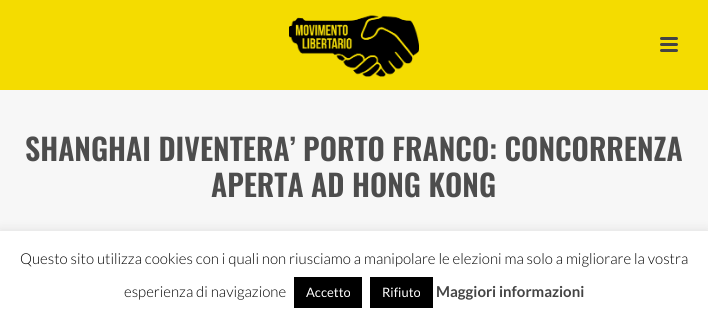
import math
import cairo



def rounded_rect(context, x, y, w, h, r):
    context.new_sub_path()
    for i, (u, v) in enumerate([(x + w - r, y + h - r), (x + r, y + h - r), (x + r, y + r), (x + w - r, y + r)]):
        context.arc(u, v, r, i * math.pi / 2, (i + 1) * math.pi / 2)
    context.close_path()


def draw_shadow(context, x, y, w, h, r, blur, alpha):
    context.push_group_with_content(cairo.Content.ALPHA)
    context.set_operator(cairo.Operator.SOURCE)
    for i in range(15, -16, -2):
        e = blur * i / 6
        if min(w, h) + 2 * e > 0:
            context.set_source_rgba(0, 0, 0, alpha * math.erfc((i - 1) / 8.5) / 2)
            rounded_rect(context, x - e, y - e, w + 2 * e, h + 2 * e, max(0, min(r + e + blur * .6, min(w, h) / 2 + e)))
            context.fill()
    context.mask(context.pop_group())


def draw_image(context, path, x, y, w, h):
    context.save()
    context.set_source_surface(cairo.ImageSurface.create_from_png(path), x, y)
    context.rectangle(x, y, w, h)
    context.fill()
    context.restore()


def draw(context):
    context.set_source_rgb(247 / 255, 247 / 255, 247 / 255)
    context.paint()
    context.set_source_rgb(244 / 255, 220 / 255, 0)
    context.rectangle(0, 0, 708, 90)
    context.fill()
    draw_image(context, "images/1.png", 289, 15, 130, 62)
    context.set_source_rgb(68 / 255, 68 / 255, 68 / 255)
    rounded_rect(context, 660, 37, 18, 3, 1.5)
    context.fill()
    rounded_rect(context, 660, 43, 18, 3, 1.5)
    context.fill()
    rounded_rect(context, 660, 49, 18, 3, 1.5)
    context.fill()
    context.set_source_rgb(172 / 255, 171 / 255, 171 / 255)
    draw_shadow(context, 0, 230, 708, 89, 0, 5, 0.3)
    context.set_source_rgb(1, 1, 1)
    context.rectangle(0, 231, 708, 89)
    context.fill()
    context.set_source_rgb(0, 0, 0)
    context.rectangle(294, 277, 68, 31)
    context.fill()
    context.rectangle(370, 277, 63, 31)
    context.fill()
    context.select_font_face("Oswald SemiBold")
    context.set_font_size(30)
    context.set_source_rgb(77 / 255, 77 / 255, 77 / 255)
    context.move_to(25, 161)
    context.show_text("SHANGHAI DIVENTERA’ PORTO FRANCO: CONCORRENZA")
    context.move_to(211, 197)
    context.show_text("APERTA AD HONG KONG")
    context.select_font_face("Lato Light")
    context.set_font_size(15)
    context.set_source_rgb(0, 0, 0)
    context.move_to(20, 264)
    context.show_text("Questo sito utilizza cookies con i quali non riusciamo a manipolare le elezioni ma solo a migliorare la vostra")
    context.move_to(124, 297)
    context.show_text("esperienza di navigazione")
    context.select_font_face("Lato")
    context.set_font_size(13)
    context.set_source_rgb(1, 1, 1)
    context.move_to(306, 297)
    context.show_text("Accetto")
    context.move_to(382, 297)
    context.show_text("Rifiuto")
    context.select_font_face("Lato", cairo.FontSlant.NORMAL, cairo.FontWeight.BOLD)
    context.set_font_size(15)
    context.set_source_rgb(68 / 255, 68 / 255, 68 / 255)
    context.move_to(436, 297)
    context.show_text("Maggiori informazioni")


surface = cairo.ImageSurface(cairo.Format.RGB24, 708, 320)
context = cairo.Context(surface)
options = cairo.FontOptions()
options.set_hint_metrics(cairo.HintMetrics.OFF)
options.set_hint_style(cairo.HintStyle.NONE)
context.set_font_options(options)
context.set_miter_limit(4)
draw(context)
surface.write_to_png("out.png")
